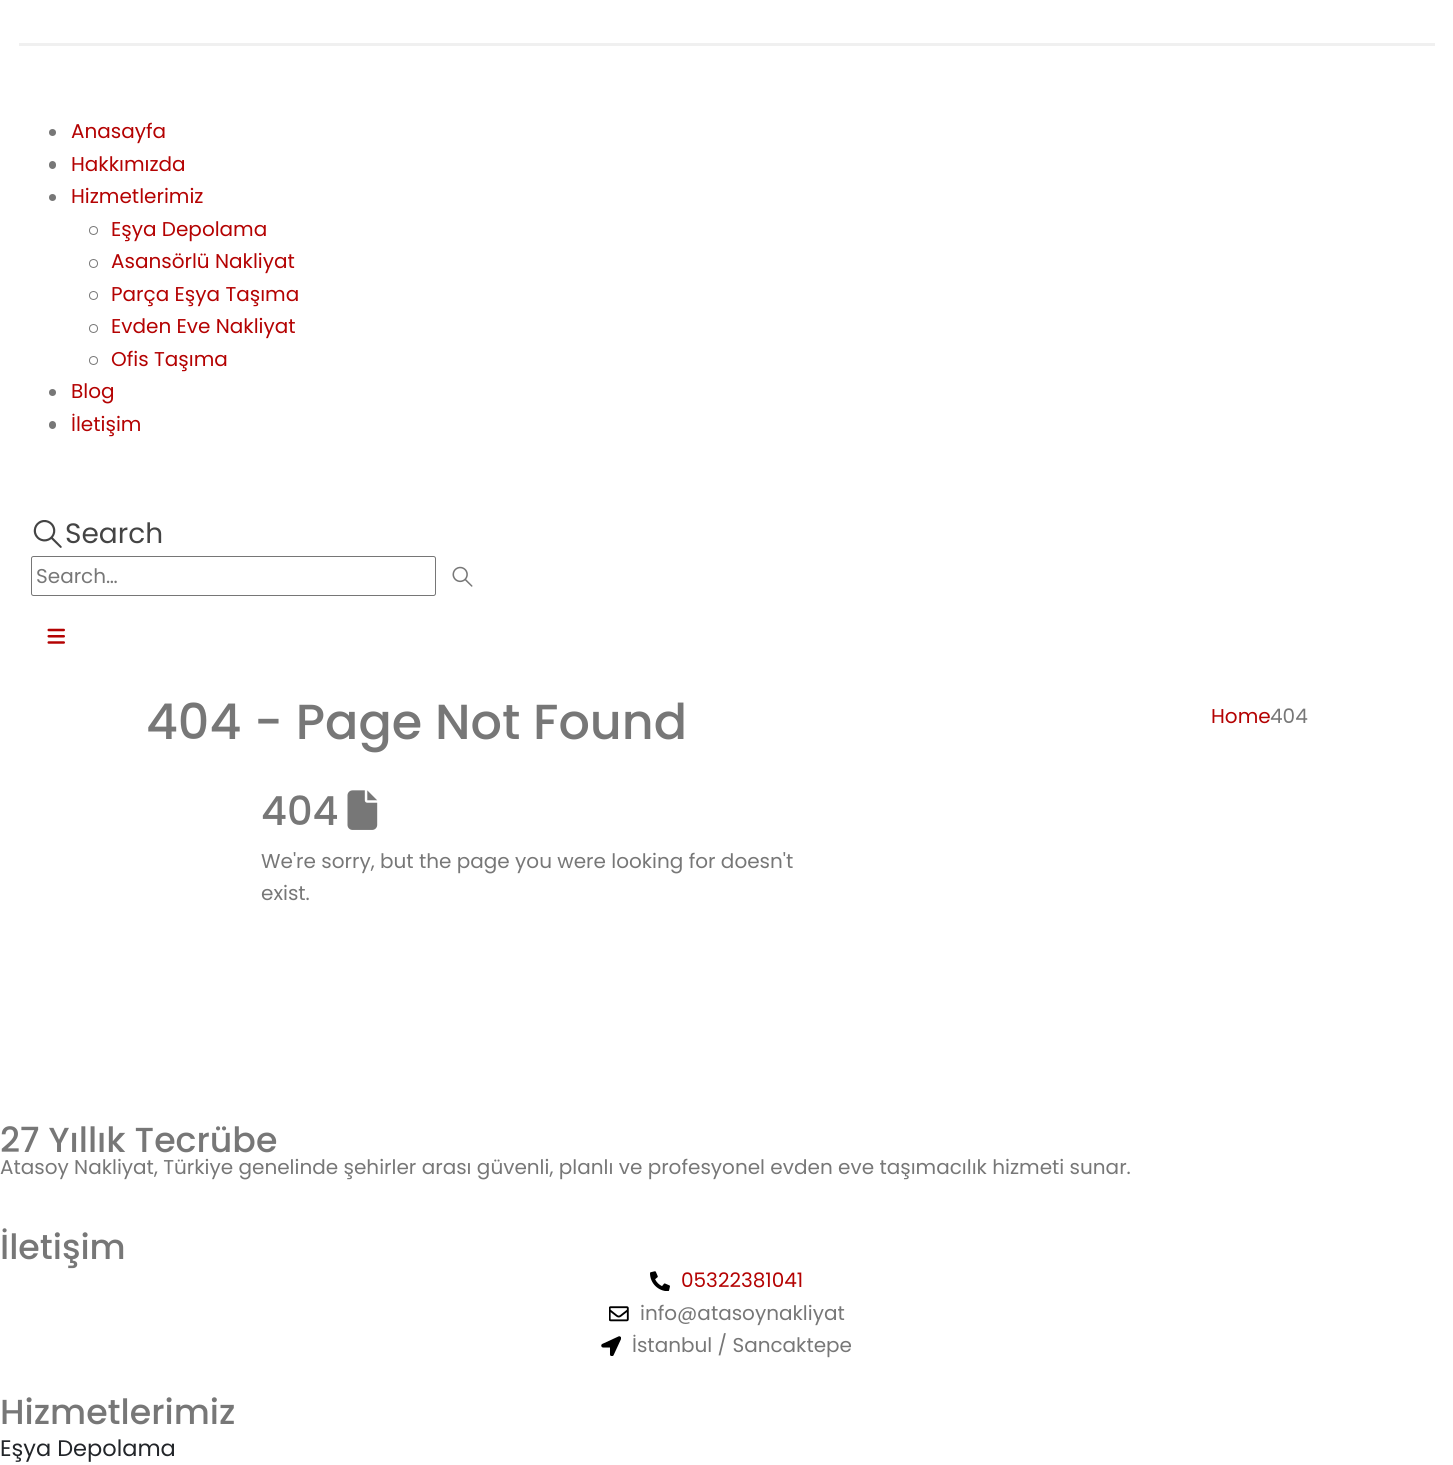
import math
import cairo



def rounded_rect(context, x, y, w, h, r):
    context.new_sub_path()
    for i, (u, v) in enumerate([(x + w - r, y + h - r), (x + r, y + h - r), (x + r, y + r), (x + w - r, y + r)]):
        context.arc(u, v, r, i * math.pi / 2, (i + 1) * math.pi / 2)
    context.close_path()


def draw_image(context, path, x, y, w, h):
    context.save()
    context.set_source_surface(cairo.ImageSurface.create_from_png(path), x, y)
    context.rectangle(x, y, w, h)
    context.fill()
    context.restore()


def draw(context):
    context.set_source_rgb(1, 1, 1)
    context.paint()
    context.set_source_rgb(240 / 255, 240 / 255, 240 / 255)
    context.rectangle(19, 43, 1416, 3)
    context.fill()
    context.set_source_rgb(119 / 255, 119 / 255, 119 / 255)
    context.arc(52.5, 132.5, 3.5, 0, 2 * math.pi)
    context.fill()
    rounded_rect(context, 49, 161, 7, 8, 3.5)
    context.fill()
    context.arc(52.5, 197.5, 3.5, 0, 2 * math.pi)
    context.fill()
    context.arc(93.5, 230.5, 4, 0, 2 * math.pi)
    context.set_line_width(1)
    context.stroke()
    context.arc(93.5, 263.5, 4, 0, 2 * math.pi)
    context.stroke()
    context.arc(93.5, 295.5, 4, 0, 2 * math.pi)
    context.stroke()
    context.arc(93.5, 328.5, 4, 0, 2 * math.pi)
    context.stroke()
    context.arc(93.5, 360.5, 4, 0, 2 * math.pi)
    context.stroke()
    context.arc(52.5, 392.5, 3.5, 0, 2 * math.pi)
    context.fill()
    rounded_rect(context, 49, 421, 7, 8, 3.5)
    context.fill()
    draw_image(context, "images/1.png", 33, 520, 29, 28)
    rounded_rect(context, 31.5, 556.5, 404, 39, 2)
    context.set_source_rgb(118 / 255, 118 / 255, 118 / 255)
    context.stroke()
    draw_image(context, "images/2.png", 452, 566, 21, 21)
    draw_image(context, "images/3.png", 47, 628, 18, 16)
    draw_image(context, "images/4.png", 347, 790, 31, 40)
    draw_image(context, "images/5.png", 650, 1271, 20, 20)
    draw_image(context, "images/6.png", 609, 1306, 20, 16)
    draw_image(context, "images/7.png", 601, 1336, 20, 20)
    context.select_font_face("Poppins")
    context.set_font_size(20)
    context.set_source_rgb(180 / 255, 2 / 255, 2 / 255)
    context.move_to(71, 138)
    context.show_text("Anasayfa")
    context.move_to(71, 171)
    context.show_text("Hakkımızda")
    context.move_to(71, 203)
    context.show_text("Hizmetlerimiz")
    context.move_to(111, 236)
    context.show_text("Eşya Depolama")
    context.move_to(111, 268)
    context.show_text("Asansörlü Nakliyat")
    context.move_to(111, 301)
    context.show_text("Parça Eşya Taşıma")
    context.move_to(111, 333)
    context.show_text("Evden Eve Nakliyat")
    context.move_to(111, 366)
    context.show_text("Ofis Taşıma")
    context.move_to(71, 398)
    context.show_text("Blog")
    context.move_to(71, 431)
    context.show_text("İletişim")
    context.set_font_size(28)
    context.set_source_rgb(68 / 255, 68 / 255, 68 / 255)
    context.move_to(65, 543)
    context.show_text("Search")
    context.set_font_size(20)
    context.set_source_rgb(119 / 255, 119 / 255, 119 / 255)
    context.move_to(36, 583)
    context.show_text("Search…")
    context.select_font_face("Poppins Medium")
    context.set_font_size(49.25)
    context.move_to(146, 739)
    context.show_text("404 - Page Not Found")
    context.select_font_face("Poppins")
    context.set_font_size(20)
    context.set_source_rgb(180 / 255, 2 / 255, 2 / 255)
    context.move_to(1211, 723)
    context.show_text("Home")
    context.set_source_rgb(119 / 255, 119 / 255, 119 / 255)
    context.move_to(1270, 723)
    context.show_text("404")
    context.select_font_face("Poppins Medium")
    context.set_font_size(40)
    context.move_to(261, 825)
    context.show_text("404")
    context.select_font_face("Poppins")
    context.set_font_size(20)
    context.move_to(261, 868)
    context.show_text("We're sorry, but the page you were looking for doesn't")
    context.move_to(261, 900)
    context.show_text("exist.")
    context.select_font_face("Poppins Medium")
    context.set_font_size(34.75)
    context.move_to(0, 1152)
    context.show_text("27 Yıllık Tecrübe")
    context.select_font_face("Poppins")
    context.set_font_size(20)
    context.move_to(0, 1174)
    context.show_text("Atasoy Nakliyat, Türkiye genelinde şehirler arası güvenli, planlı ve profesyonel evden eve taşımacılık hizmeti sunar.")
    context.select_font_face("Poppins Medium")
    context.set_font_size(34.75)
    context.move_to(0, 1259)
    context.show_text("İletişim")
    context.select_font_face("Poppins")
    context.set_font_size(20)
    context.set_source_rgb(180 / 255, 2 / 255, 2 / 255)
    context.move_to(681, 1287)
    context.show_text("05322381041")
    context.set_source_rgb(119 / 255, 119 / 255, 119 / 255)
    context.move_to(640, 1320)
    context.show_text("info@atasoynakliyat")
    context.move_to(632, 1352)
    context.show_text("İstanbul / Sancaktepe")
    context.select_font_face("Poppins Medium")
    context.set_font_size(34.75)
    context.move_to(0, 1424)
    context.show_text("Hizmetlerimiz")
    context.select_font_face("Poppins")
    context.set_font_size(22.5)
    context.set_source_rgb(34 / 255, 37 / 255, 41 / 255)
    context.move_to(0, 1456)
    context.show_text("Eşya Depolama")


surface = cairo.ImageSurface(cairo.Format.RGB24, 1453, 1465)
context = cairo.Context(surface)
options = cairo.FontOptions()
options.set_hint_metrics(cairo.HintMetrics.OFF)
options.set_hint_style(cairo.HintStyle.NONE)
context.set_font_options(options)
context.set_miter_limit(4)
draw(context)
surface.write_to_png("out.png")
